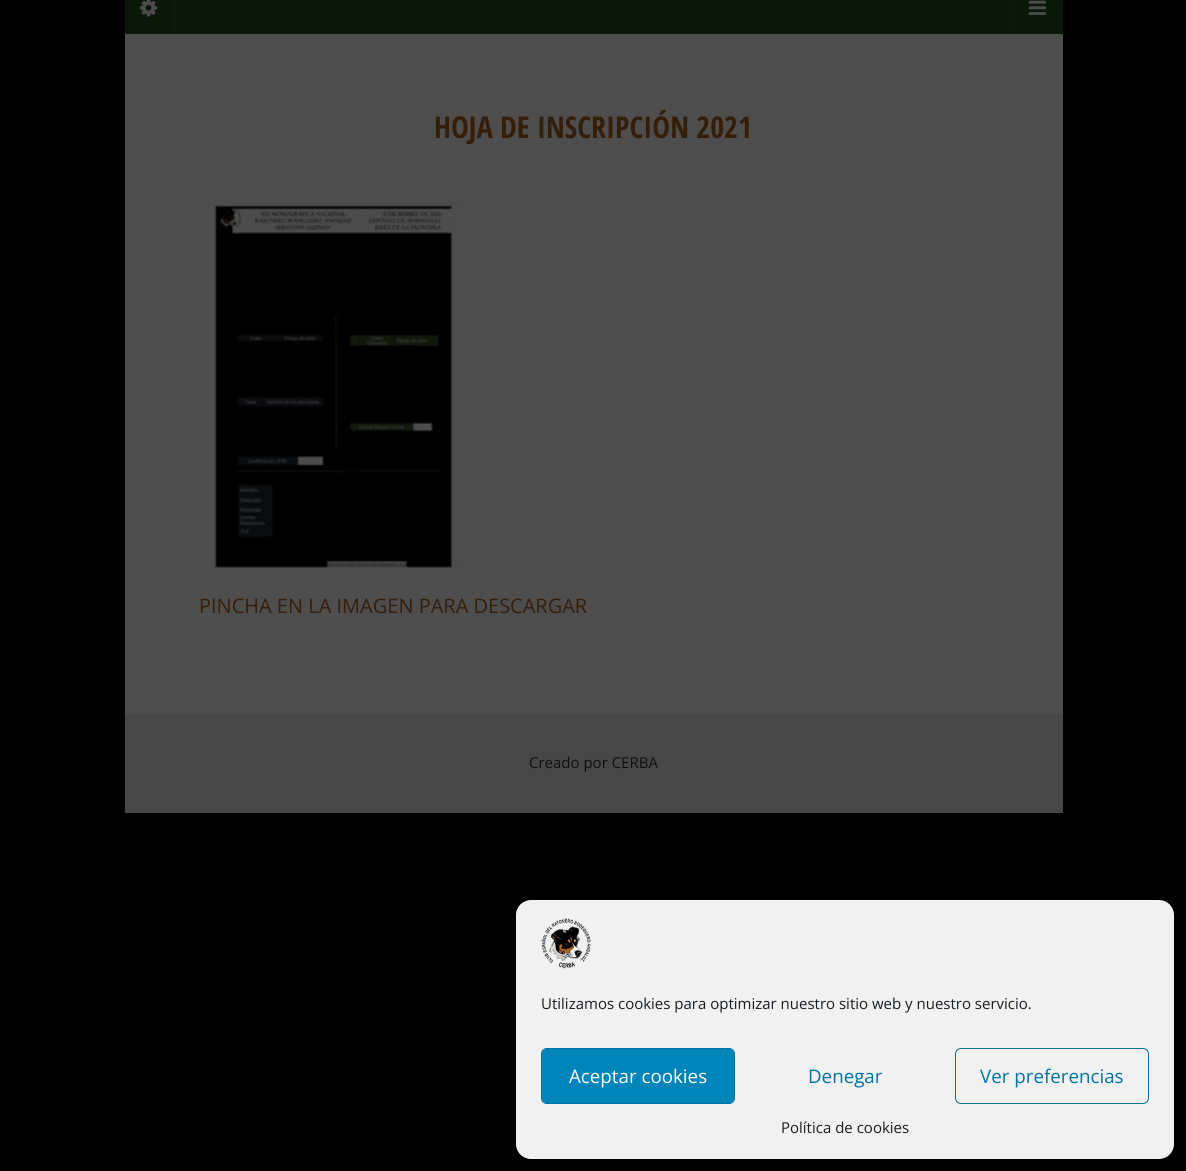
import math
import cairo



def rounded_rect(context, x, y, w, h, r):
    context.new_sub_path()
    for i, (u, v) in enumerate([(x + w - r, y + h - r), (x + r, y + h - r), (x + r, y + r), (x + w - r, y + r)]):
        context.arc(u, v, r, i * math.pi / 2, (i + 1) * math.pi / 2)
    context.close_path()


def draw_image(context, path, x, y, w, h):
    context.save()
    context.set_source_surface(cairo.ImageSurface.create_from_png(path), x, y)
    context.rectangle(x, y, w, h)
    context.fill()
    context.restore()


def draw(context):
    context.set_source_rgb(0, 0, 0)
    context.paint()
    context.set_source_rgb(9 / 255, 24 / 255, 8 / 255)
    context.rectangle(125, 0, 938, 33)
    context.fill()
    context.set_source_rgb(16 / 255, 29 / 255, 14 / 255)
    context.rectangle(174, 0, 1, 33)
    context.fill()
    draw_image(context, "images/1.png", 140, 0, 18, 17)
    context.rectangle(1013, 0, 1, 33)
    context.fill()
    draw_image(context, "images/2.png", 1028, 0, 18, 15)
    context.rectangle(125, 33, 938, 1)
    context.fill()
    context.set_source_rgb(77 / 255, 77 / 255, 77 / 255)
    context.rectangle(125, 34, 938, 680)
    context.fill()
    draw_image(context, "images/3.png", 211, 199, 249, 370)
    context.set_source_rgb(71 / 255, 71 / 255, 71 / 255)
    context.rectangle(125, 714, 938, 99)
    context.fill()
    context.set_source_rgb(241 / 255, 241 / 255, 241 / 255)
    rounded_rect(context, 516, 900, 658, 259, 15)
    context.fill()
    draw_image(context, "images/4.png", 541, 918, 51, 51)
    context.set_source_rgb(0, 133 / 255, 186 / 255)
    rounded_rect(context, 541.5, 1048.5, 193, 55, 5.5)
    context.fill_preserve()
    context.set_source_rgb(0, 115 / 255, 170 / 255)
    context.set_line_width(1)
    context.stroke()
    rounded_rect(context, 955.5, 1048.5, 193, 55, 5.5)
    context.stroke()
    context.select_font_face("Open Sans Condensed", cairo.FontSlant.NORMAL, cairo.FontWeight.BOLD)
    context.set_font_size(30)
    context.set_source_rgb(53 / 255, 30 / 255, 9 / 255)
    context.move_to(434, 138)
    context.show_text("HOJA DE INSCRIPCIÓN 2021")
    context.select_font_face("Open Sans")
    context.set_font_size(20)
    context.move_to(199, 613)
    context.show_text("PINCHA EN LA IMAGEN PARA DESCARGAR")
    context.set_font_size(15)
    context.set_source_rgb(15 / 255, 15 / 255, 15 / 255)
    context.move_to(529, 768)
    context.show_text("Creado por CERBA")
    context.set_source_rgb(25 / 255, 30 / 255, 35 / 255)
    context.move_to(541, 1009)
    context.show_text("Utilizamos cookies para optimizar nuestro sitio web y nuestro servicio.")
    context.set_font_size(18.75)
    context.set_source_rgb(1, 1, 1)
    context.move_to(569, 1083)
    context.show_text("Aceptar cookies")
    context.set_source_rgb(0, 115 / 255, 170 / 255)
    context.move_to(808, 1083)
    context.show_text("Denegar")
    context.move_to(980, 1083)
    context.show_text("Ver preferencias")
    context.set_font_size(15)
    context.set_source_rgb(25 / 255, 30 / 255, 35 / 255)
    context.move_to(781, 1133)
    context.show_text("Política de cookies")


surface = cairo.ImageSurface(cairo.Format.RGB24, 1186, 1171)
context = cairo.Context(surface)
options = cairo.FontOptions()
options.set_hint_metrics(cairo.HintMetrics.OFF)
options.set_hint_style(cairo.HintStyle.NONE)
context.set_font_options(options)
context.set_miter_limit(4)
draw(context)
surface.write_to_png("out.png")
